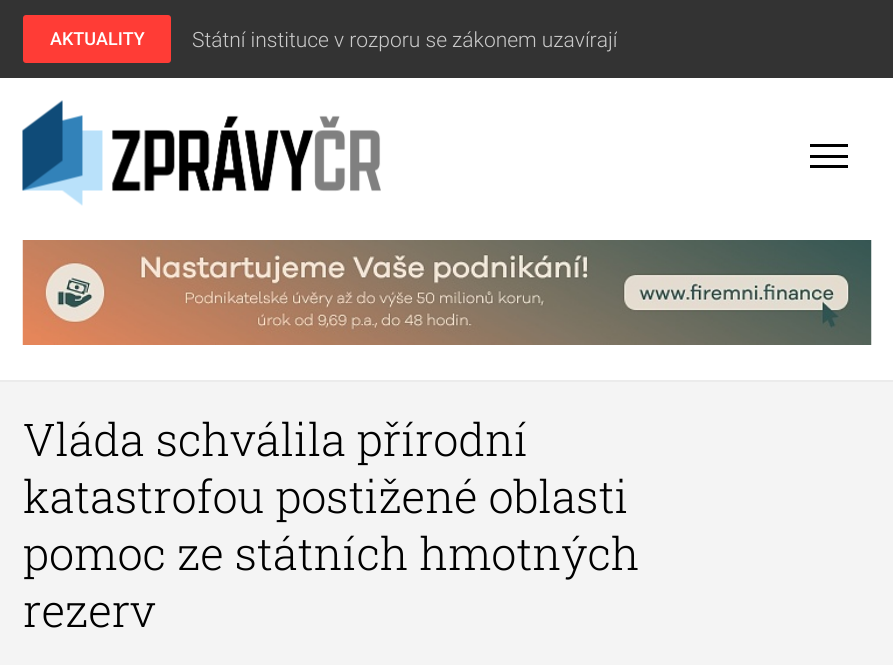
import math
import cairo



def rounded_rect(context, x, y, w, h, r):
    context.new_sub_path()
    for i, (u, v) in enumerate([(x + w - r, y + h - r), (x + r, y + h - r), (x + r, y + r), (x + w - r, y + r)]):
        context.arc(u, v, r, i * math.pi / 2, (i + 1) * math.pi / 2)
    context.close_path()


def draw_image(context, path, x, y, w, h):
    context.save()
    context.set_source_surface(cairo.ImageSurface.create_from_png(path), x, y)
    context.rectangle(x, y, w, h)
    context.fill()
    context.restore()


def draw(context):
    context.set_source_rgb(1, 1, 1)
    context.paint()
    context.set_source_rgb(51 / 255, 51 / 255, 51 / 255)
    context.rectangle(0, 0, 893, 78)
    context.fill()
    context.set_source_rgb(1, 60 / 255, 54 / 255)
    rounded_rect(context, 23, 15, 148, 48, 3)
    context.fill()
    draw_image(context, "images/1.png", 22, 100, 359, 106)
    context.set_source_rgb(0, 0, 0)
    context.rectangle(810, 144, 38, 3)
    context.fill()
    context.rectangle(810, 155, 38, 3)
    context.fill()
    context.rectangle(810, 165, 38, 3)
    context.fill()
    draw_image(context, "images/2.png", 22, 240, 850, 105)
    context.set_source_rgb(244 / 255, 244 / 255, 244 / 255)
    context.rectangle(0, 382, 893, 283)
    context.fill()
    context.set_source_rgb(235 / 255, 235 / 255, 235 / 255)
    context.rectangle(0, 380, 893, 2)
    context.fill()
    context.select_font_face("Roboto Medium")
    context.set_font_size(18)
    context.set_source_rgb(1, 1, 1)
    context.move_to(50, 45)
    context.show_text("AKTUALITY")
    context.select_font_face("Roboto Light")
    context.set_font_size(21)
    context.set_source_rgb(202 / 255, 202 / 255, 202 / 255)
    context.move_to(192, 47)
    context.show_text("Státní instituce v rozporu se zákonem uzavírají")
    context.set_source_rgb(51 / 255, 51 / 255, 51 / 255)
    context.rectangle(617, 31, 1, 2)
    context.fill()
    context.select_font_face("Roboto Slab Light")
    context.set_font_size(45)
    context.set_source_rgb(0, 0, 0)
    context.move_to(23, 456)
    context.show_text("Vláda schválila přírodní")
    context.move_to(23, 513)
    context.show_text("katastrofou postižené oblasti")
    context.move_to(23, 570)
    context.show_text("pomoc ze státních hmotných")
    context.move_to(23, 627)
    context.show_text("rezerv")


surface = cairo.ImageSurface(cairo.Format.RGB24, 893, 665)
context = cairo.Context(surface)
options = cairo.FontOptions()
options.set_hint_metrics(cairo.HintMetrics.OFF)
options.set_hint_style(cairo.HintStyle.NONE)
context.set_font_options(options)
context.set_miter_limit(4)
draw(context)
surface.write_to_png("out.png")
